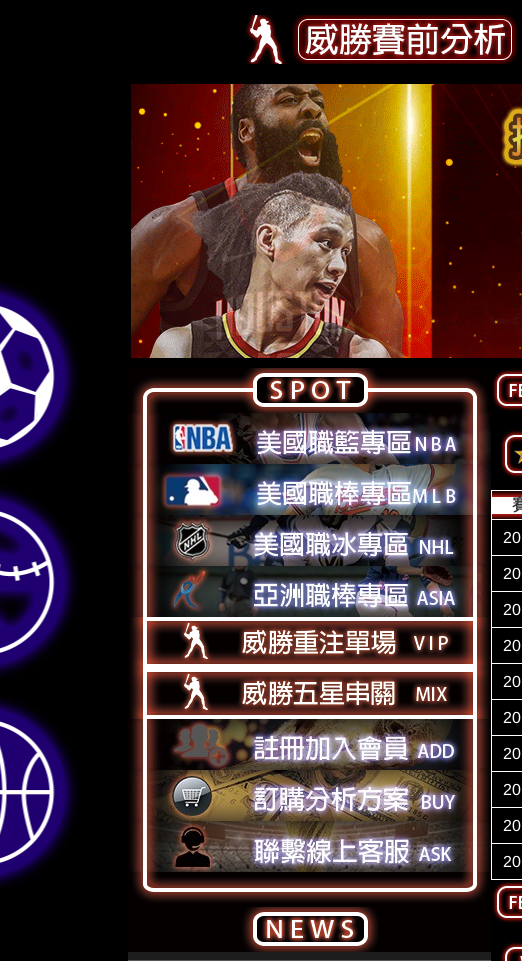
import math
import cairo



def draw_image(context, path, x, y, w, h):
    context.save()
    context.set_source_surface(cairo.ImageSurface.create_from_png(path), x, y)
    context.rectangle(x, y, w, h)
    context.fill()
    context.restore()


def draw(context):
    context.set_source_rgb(0, 0, 0)
    context.paint()
    draw_image(context, "images/1.png", 0, 280, 79, 609)
    draw_image(context, "images/2.png", 245, 15, 273, 49)
    draw_image(context, "images/3.png", 131, 84, 391, 274)
    context.set_source_rgb(29 / 255, 29 / 255, 29 / 255)
    context.rectangle(128, 952, 363, 8)
    context.fill()
    draw_image(context, "images/4.png", 128, 368, 363, 45)
    draw_image(context, "images/5.png", 128, 413, 363, 51)
    draw_image(context, "images/6.png", 128, 464, 363, 51)
    draw_image(context, "images/7.png", 128, 515, 363, 51)
    draw_image(context, "images/8.png", 128, 566, 363, 51)
    draw_image(context, "images/9.png", 128, 617, 363, 51)
    draw_image(context, "images/10.png", 128, 668, 363, 51)
    draw_image(context, "images/11.png", 128, 719, 363, 51)
    draw_image(context, "images/12.png", 128, 770, 363, 51)
    draw_image(context, "images/13.png", 128, 821, 363, 51)
    draw_image(context, "images/14.png", 128, 872, 363, 35)
    draw_image(context, "images/15.png", 128, 907, 363, 45)
    draw_image(context, "images/16.png", 128, 960, 237, 1)
    draw_image(context, "images/17.png", 365, 960, 50, 1)
    draw_image(context, "images/18.png", 415, 960, 76, 1)
    draw_image(context, "images/19.png", 492, 369, 30, 42)
    draw_image(context, "images/20.png", 500, 430, 22, 48)
    context.set_source_rgb(1, 1, 1)
    context.rectangle(491, 490, 31, 1)
    context.fill()
    context.rectangle(491, 879, 31, 1)
    context.fill()
    context.rectangle(491, 490, 1, 390)
    context.fill()
    draw_image(context, "images/21.png", 492, 491, 30, 28)
    context.rectangle(491, 519, 31, 1)
    context.fill()
    context.rectangle(491, 555, 31, 1)
    context.fill()
    context.rectangle(491, 591, 31, 1)
    context.fill()
    context.rectangle(491, 627, 31, 1)
    context.fill()
    context.rectangle(491, 663, 31, 1)
    context.fill()
    context.rectangle(491, 699, 31, 1)
    context.fill()
    context.rectangle(491, 735, 31, 1)
    context.fill()
    context.rectangle(491, 771, 31, 1)
    context.fill()
    context.rectangle(491, 807, 31, 1)
    context.fill()
    context.rectangle(491, 843, 31, 1)
    context.fill()
    draw_image(context, "images/19.png", 492, 881, 30, 42)
    draw_image(context, "images/22.png", 500, 942, 22, 19)
    context.select_font_face("WenQuanYi Zen Hei", cairo.FontSlant.NORMAL, cairo.FontWeight.BOLD)
    context.set_font_size(16)
    context.set_source_rgb(51 / 255, 51 / 255, 51 / 255)
    context.move_to(512, 510)
    context.show_text("賽")
    context.select_font_face("Liberation Sans")
    context.set_source_rgb(1, 1, 1)
    context.move_to(503, 543)
    context.show_text("20")
    context.move_to(503, 579)
    context.show_text("20")
    context.move_to(503, 615)
    context.show_text("20")
    context.move_to(503, 651)
    context.show_text("20")
    context.move_to(503, 687)
    context.show_text("20")
    context.move_to(503, 723)
    context.show_text("20")
    context.move_to(503, 759)
    context.show_text("20")
    context.move_to(503, 795)
    context.show_text("20")
    context.move_to(503, 831)
    context.show_text("20")
    context.move_to(503, 867)
    context.show_text("20")


surface = cairo.ImageSurface(cairo.Format.RGB24, 522, 961)
context = cairo.Context(surface)
options = cairo.FontOptions()
options.set_hint_metrics(cairo.HintMetrics.OFF)
options.set_hint_style(cairo.HintStyle.NONE)
context.set_font_options(options)
context.set_miter_limit(4)
draw(context)
surface.write_to_png("out.png")
